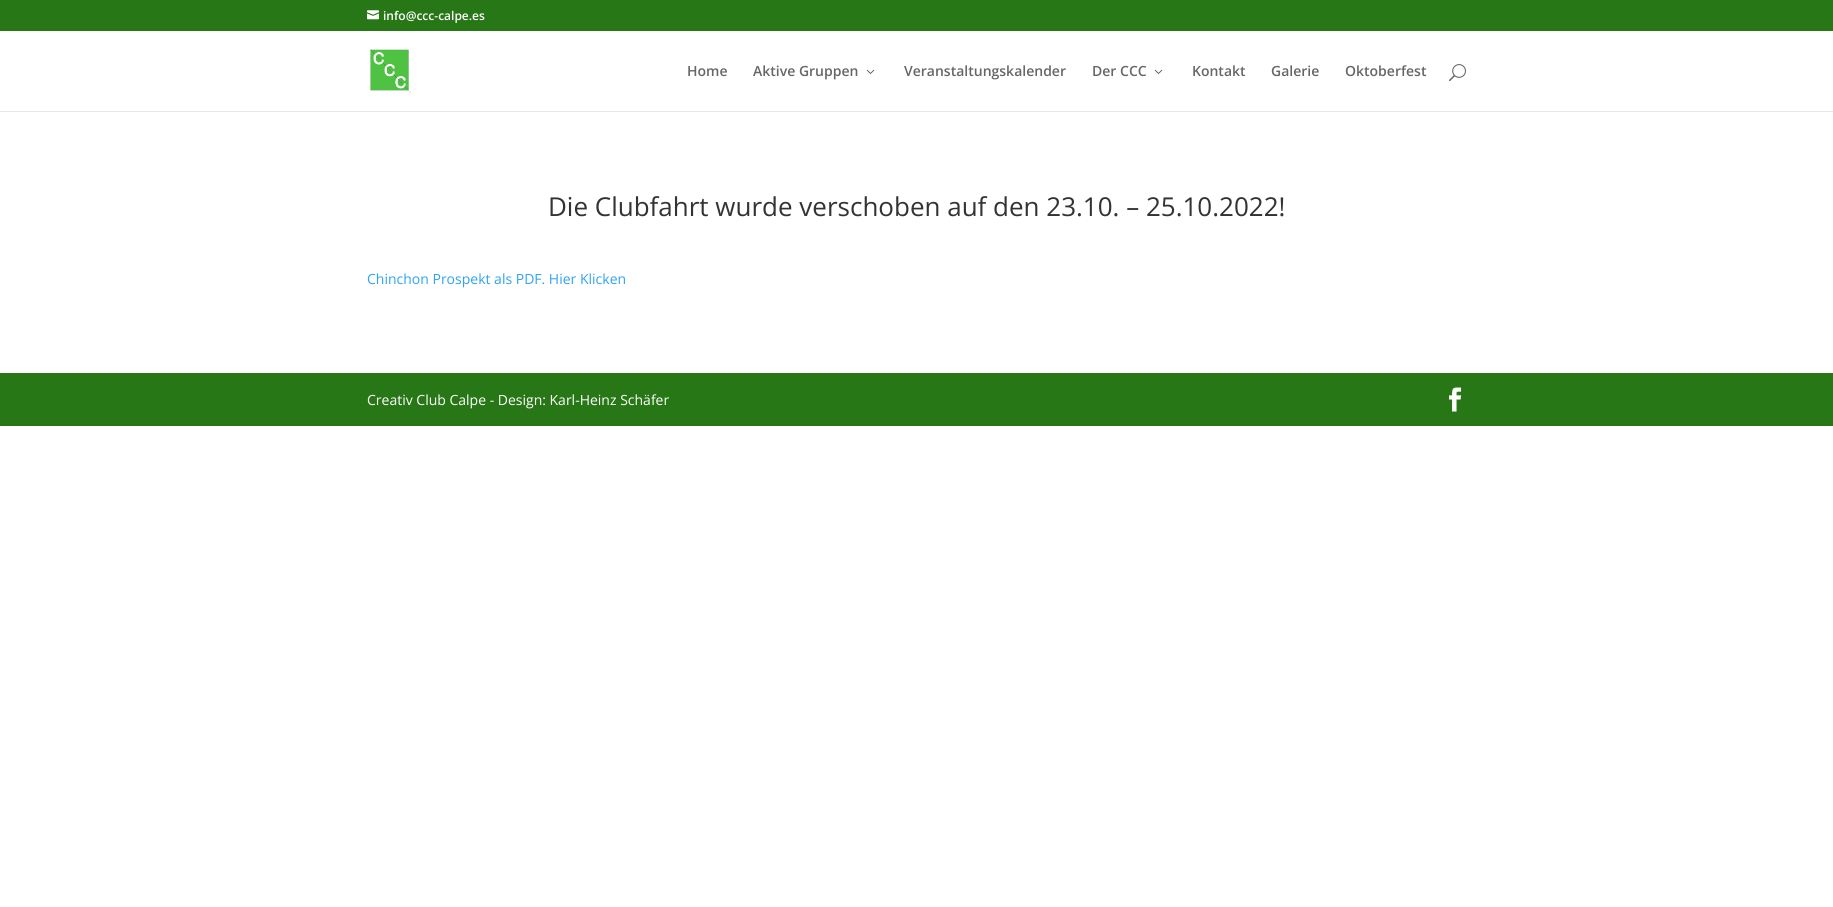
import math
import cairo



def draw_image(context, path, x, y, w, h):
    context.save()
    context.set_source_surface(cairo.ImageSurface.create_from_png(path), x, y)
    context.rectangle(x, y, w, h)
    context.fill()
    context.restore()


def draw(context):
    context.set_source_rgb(1, 1, 1)
    context.paint()
    context.set_source_rgb(40 / 255, 119 / 255, 22 / 255)
    context.rectangle(0, 0, 1833, 31)
    context.fill()
    draw_image(context, "images/1.png", 367, 10, 12, 10)
    context.set_source_rgb(230 / 255, 230 / 255, 230 / 255)
    context.rectangle(0, 111, 1833, 1)
    context.fill()
    draw_image(context, "images/2.png", 370, 49, 41, 44)
    draw_image(context, "images/3.png", 866, 69, 9, 5)
    draw_image(context, "images/3.png", 1154, 69, 9, 5)
    draw_image(context, "images/4.png", 1449, 64, 17, 18)
    context.set_source_rgb(40 / 255, 119 / 255, 22 / 255)
    context.rectangle(0, 373, 1833, 53)
    context.fill()
    draw_image(context, "images/5.png", 1449, 387, 13, 25)
    context.select_font_face("Open Sans SemiBold")
    context.set_font_size(12)
    context.set_source_rgb(1, 1, 1)
    context.move_to(383, 20)
    context.show_text("info@ccc-calpe.es")
    context.set_font_size(14)
    context.set_source_rgb(102 / 255, 102 / 255, 102 / 255)
    context.move_to(687, 76)
    context.show_text("Home")
    context.move_to(753, 76)
    context.show_text("Aktive Gruppen")
    context.move_to(904, 76)
    context.show_text("Veranstaltungskalender")
    context.move_to(1092, 76)
    context.show_text("Der CCC")
    context.move_to(1192, 76)
    context.show_text("Kontakt")
    context.move_to(1271, 76)
    context.show_text("Galerie")
    context.move_to(1345, 76)
    context.show_text("Oktoberfest")
    context.select_font_face("Open Sans")
    context.set_font_size(26)
    context.set_source_rgb(51 / 255, 51 / 255, 51 / 255)
    context.move_to(548, 216)
    context.show_text("Die Clubfahrt wurde verschoben auf den 23.10. – 25.10.2022!")
    context.set_font_size(14)
    context.set_source_rgb(46 / 255, 163 / 255, 242 / 255)
    context.move_to(367, 284)
    context.show_text("Chinchon Prospekt als PDF. Hier Klicken")
    context.set_source_rgb(1, 1, 1)
    context.move_to(367, 405)
    context.show_text("Creativ Club Calpe - Design: Karl-Heinz Schäfer")


surface = cairo.ImageSurface(cairo.Format.RGB24, 1833, 907)
context = cairo.Context(surface)
options = cairo.FontOptions()
options.set_hint_metrics(cairo.HintMetrics.OFF)
options.set_hint_style(cairo.HintStyle.NONE)
context.set_font_options(options)
context.set_miter_limit(4)
draw(context)
surface.write_to_png("out.png")
